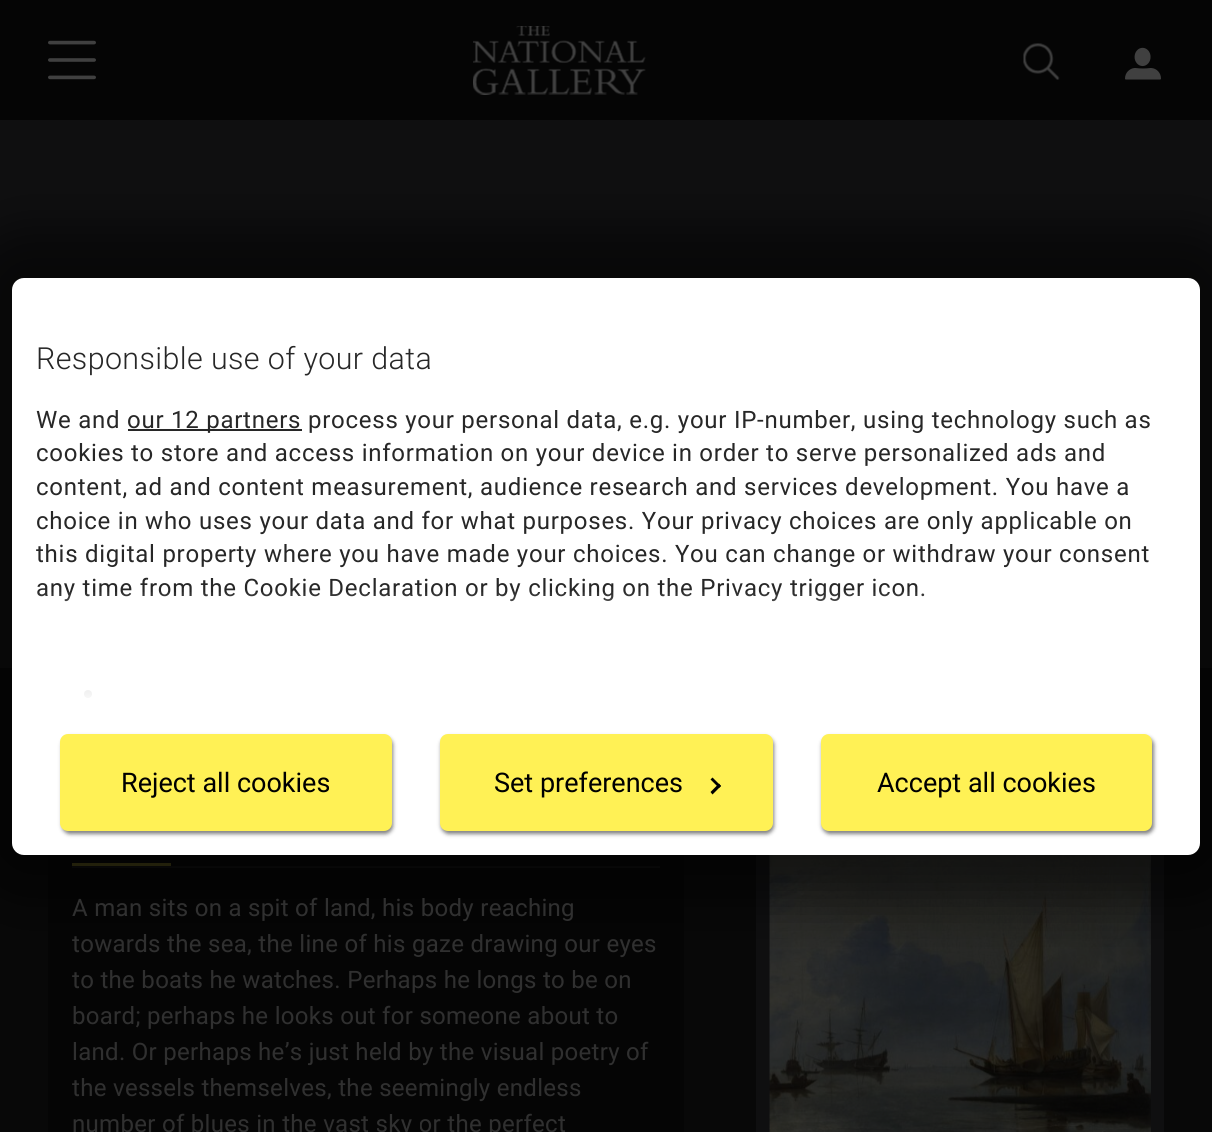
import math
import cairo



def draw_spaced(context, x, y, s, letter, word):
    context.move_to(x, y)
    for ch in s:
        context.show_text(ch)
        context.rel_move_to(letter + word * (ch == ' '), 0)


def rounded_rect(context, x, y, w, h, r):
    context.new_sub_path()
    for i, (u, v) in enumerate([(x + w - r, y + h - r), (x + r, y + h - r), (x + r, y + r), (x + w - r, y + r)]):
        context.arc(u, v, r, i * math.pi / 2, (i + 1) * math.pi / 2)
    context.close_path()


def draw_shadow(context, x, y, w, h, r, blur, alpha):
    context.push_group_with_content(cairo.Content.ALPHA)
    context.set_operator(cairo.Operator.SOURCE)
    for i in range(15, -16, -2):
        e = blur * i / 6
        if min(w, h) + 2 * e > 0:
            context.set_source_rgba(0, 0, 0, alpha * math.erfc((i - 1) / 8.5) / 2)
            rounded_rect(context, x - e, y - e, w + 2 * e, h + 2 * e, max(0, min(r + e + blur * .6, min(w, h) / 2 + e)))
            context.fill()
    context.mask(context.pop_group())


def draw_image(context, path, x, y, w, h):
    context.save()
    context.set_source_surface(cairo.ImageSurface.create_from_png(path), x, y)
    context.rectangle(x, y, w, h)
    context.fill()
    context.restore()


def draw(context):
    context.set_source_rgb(8 / 255, 8 / 255, 8 / 255)
    context.paint()
    context.set_source_rgb(5 / 255, 5 / 255, 5 / 255)
    context.rectangle(0, 0, 1212, 120)
    context.fill()
    draw_image(context, "images/1.png", 48, 40, 48, 40)
    draw_image(context, "images/2.png", 473, 26, 173, 69)
    draw_image(context, "images/3.png", 1023, 43, 37, 37)
    draw_image(context, "images/4.png", 1125, 47, 36, 33)
    context.set_source_rgb(15 / 255, 15 / 255, 16 / 255)
    context.rectangle(0, 120, 1212, 548)
    context.fill()
    context.set_source_rgb(5 / 255, 5 / 255, 5 / 255)
    context.rectangle(48, 855, 636, 277)
    context.fill()
    context.set_source_rgb(14 / 255, 14 / 255, 14 / 255)
    context.rectangle(72, 866, 588, 2)
    context.fill()
    context.set_source_rgb(64 / 255, 60 / 255, 21 / 255)
    context.rectangle(72, 863, 99, 3)
    context.fill()
    context.set_source_rgb(15 / 255, 15 / 255, 16 / 255)
    context.rectangle(758, 855, 404, 277)
    context.fill()
    context.rectangle(757, 705, 406, 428)
    context.stroke()
    draw_image(context, "images/5.png", 769, 855, 382, 277)
    context.set_source_rgb(0, 0, 0)
    draw_shadow(context, -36, 230, 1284, 673, 60, 24, 0.5)
    context.set_source_rgb(1, 1, 1)
    rounded_rect(context, 12, 278, 1188, 577, 12)
    context.fill()
    context.set_source_rgb(39 / 255, 39 / 255, 39 / 255)
    context.rectangle(128, 429, 174, 2)
    context.fill()
    context.arc(88, 694, 4, 0, 2 * math.pi)
    context.fill()
    context.set_source_rgb(0, 0, 0)
    draw_shadow(context, 62, 737, 331, 97, 8, 2, 0.5)
    context.set_source_rgb(1, 241 / 255, 85 / 255)
    rounded_rect(context, 61.5, 735.5, 329, 94, 6.5)
    context.fill_preserve()
    context.set_line_width(3)
    context.stroke()
    context.set_source_rgb(0, 0, 0)
    draw_shadow(context, 441, 737, 333, 97, 8, 2, 0.5)
    context.set_source_rgb(1, 241 / 255, 85 / 255)
    rounded_rect(context, 441.5, 735.5, 330, 94, 6.5)
    context.fill_preserve()
    context.stroke()
    context.set_source_rgb(0, 0, 0)
    context.new_path()
    context.move_to(712.5, 777.5)
    context.line_to(721, 786)
    context.line_to(719, 788)
    context.line_to(710.5, 779.5)
    context.close_path()
    context.fill()
    context.new_path()
    context.move_to(719, 783.5)
    context.line_to(721, 786)
    context.line_to(712.5, 794.5)
    context.line_to(710.5, 792)
    context.close_path()
    context.fill()
    context.set_source_rgb(0, 0, 0)
    draw_shadow(context, 822, 737, 332, 97, 8, 2, 0.5)
    context.set_source_rgb(1, 241 / 255, 85 / 255)
    rounded_rect(context, 822.5, 735.5, 328, 94, 6.5)
    context.fill_preserve()
    context.stroke()
    context.select_font_face("Roboto Light")
    context.set_font_size(30.4)
    context.set_source_rgb(39 / 255, 39 / 255, 39 / 255)
    draw_spaced(context, 36, 369, "Responsible use of your data", 0.4, 0)
    context.select_font_face("Roboto")
    context.set_font_size(24)
    draw_spaced(context, 36, 428, "We and", 0.75, 0)
    draw_spaced(context, 127, 428, "our 12 partners process your personal data, e.g. your IP-number, using technology such as", 0.75, 0)
    draw_spaced(context, 36, 461, "cookies to store and access information on your device in order to serve personalized ads and", 0.75, 0)
    draw_spaced(context, 36, 495, "content, ad and content measurement, audience research and services development. You have a", 0.75, 0)
    draw_spaced(context, 36, 529, "choice in who uses your data and for what purposes. Your privacy choices are only applicable on", 0.75, 0)
    draw_spaced(context, 36, 562, "this digital property where you have made your choices. You can change or withdraw your consent", 0.75, 0)
    draw_spaced(context, 36, 596, "any time from the Cookie Declaration or by clicking on the Privacy trigger icon.", 0.75, 0)
    gradient = cairo.LinearGradient(596, 710, 596, 590)
    gradient.add_color_stop_rgba(0, 1, 1, 1, 1)
    gradient.add_color_stop_rgba(0.5, 1, 1, 1, 0.8)
    gradient.add_color_stop_rgba(1, 1, 1, 1, 0)
    context.set_source(gradient)
    context.rectangle(37, 592, 887, 106)
    context.fill()
    context.set_font_size(27)
    context.set_source_rgb(0, 0, 0)
    context.move_to(121, 792)
    context.show_text("Reject all cookies")
    context.move_to(494, 792)
    context.show_text("Set preferences")
    context.move_to(877, 792)
    context.show_text("Accept all cookies")
    context.set_font_size(24)
    context.set_source_rgb(48 / 255, 48 / 255, 48 / 255)
    draw_spaced(context, 72, 916, "A man sits on a spit of land, his body reaching", 0.3, 0)
    draw_spaced(context, 72, 952, "towards the sea, the line of his gaze drawing our eyes", 0.3, 0)
    draw_spaced(context, 72, 988, "to the boats he watches. Perhaps he longs to be on", 0.3, 0)
    draw_spaced(context, 72, 1024, "board; perhaps he looks out for someone about to", 0.3, 0)
    draw_spaced(context, 72, 1060, "land. Or perhaps he’s just held by the visual poetry of", 0.3, 0)
    draw_spaced(context, 72, 1096, "the vessels themselves, the seemingly endless", 0.3, 0)
    draw_spaced(context, 72, 1132, "number of blues in the vast sky or the perfect", 0.3, 0)


surface = cairo.ImageSurface(cairo.Format.RGB24, 1212, 1132)
context = cairo.Context(surface)
options = cairo.FontOptions()
options.set_hint_metrics(cairo.HintMetrics.OFF)
options.set_hint_style(cairo.HintStyle.NONE)
context.set_font_options(options)
context.set_miter_limit(4)
draw(context)
surface.write_to_png("out.png")
